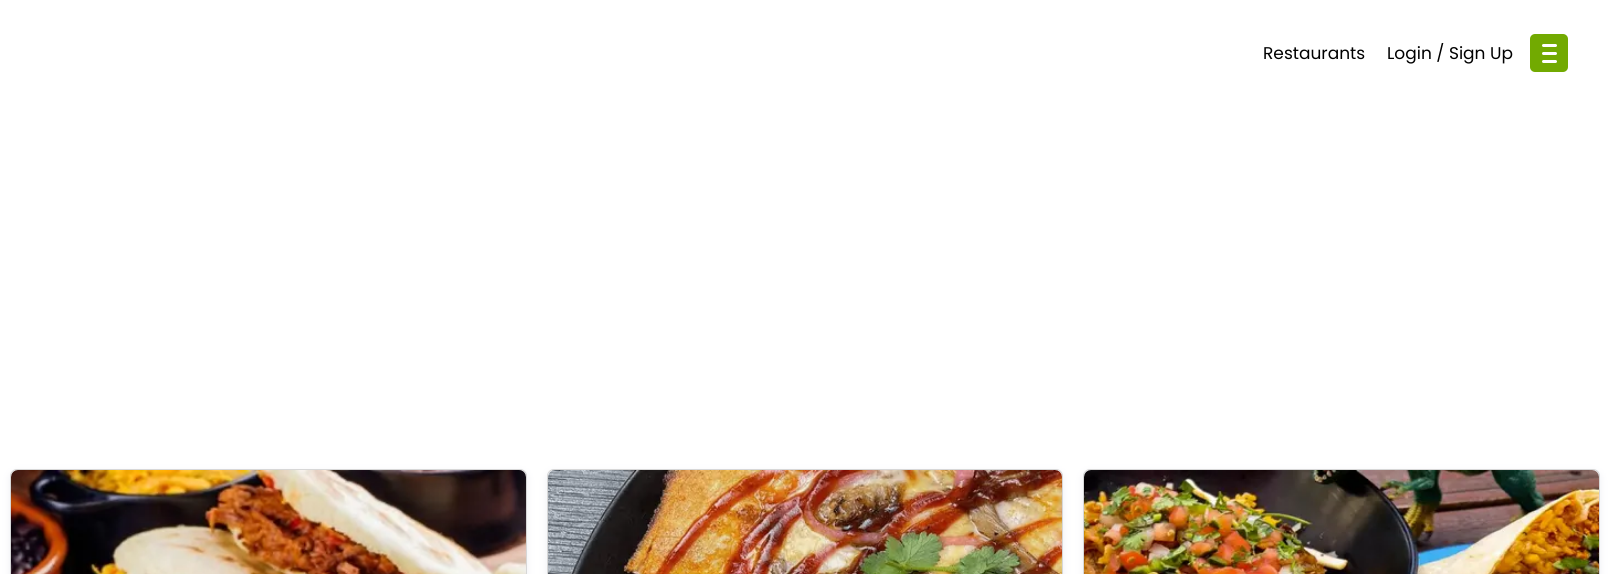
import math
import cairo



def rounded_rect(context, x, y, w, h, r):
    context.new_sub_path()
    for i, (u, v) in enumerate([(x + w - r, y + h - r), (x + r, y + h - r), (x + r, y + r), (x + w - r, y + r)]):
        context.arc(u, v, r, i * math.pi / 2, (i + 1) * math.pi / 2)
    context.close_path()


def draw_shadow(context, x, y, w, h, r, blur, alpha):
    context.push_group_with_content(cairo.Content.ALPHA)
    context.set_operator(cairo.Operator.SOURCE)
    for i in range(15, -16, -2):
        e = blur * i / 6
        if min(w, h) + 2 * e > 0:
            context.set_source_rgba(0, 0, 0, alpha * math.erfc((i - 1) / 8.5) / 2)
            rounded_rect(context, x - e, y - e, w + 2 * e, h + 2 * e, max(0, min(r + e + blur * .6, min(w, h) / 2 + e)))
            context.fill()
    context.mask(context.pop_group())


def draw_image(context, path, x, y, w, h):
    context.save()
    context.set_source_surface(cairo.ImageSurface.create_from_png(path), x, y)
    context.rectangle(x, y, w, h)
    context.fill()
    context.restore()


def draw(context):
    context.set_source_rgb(1, 1, 1)
    context.paint()
    context.set_source_rgb(114 / 255, 170 / 255, 1 / 255)
    rounded_rect(context, 1530, 34, 38, 38, 5)
    context.fill()
    context.set_source_rgb(1, 1, 1)
    rounded_rect(context, 1542, 44, 15, 3, 1.5)
    context.fill()
    rounded_rect(context, 1542, 52, 15, 3, 1.5)
    context.fill()
    rounded_rect(context, 1542, 60, 15, 3, 1.5)
    context.fill()
    context.set_source_rgb(166 / 255, 173 / 255, 201 / 255)
    draw_shadow(context, 10, 472, 517, 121, 7, 4, 0.2)
    rounded_rect(context, 10.5, 469.5, 516, 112, 6.5)
    context.set_source_rgb(215 / 255, 215 / 255, 215 / 255)
    context.set_line_width(1)
    context.stroke()
    draw_image(context, "images/1.png", 11, 470, 515, 104)
    context.set_source_rgb(166 / 255, 173 / 255, 201 / 255)
    draw_shadow(context, 547, 472, 516, 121, 7, 4, 0.2)
    rounded_rect(context, 547.5, 469.5, 515, 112, 6.5)
    context.set_source_rgb(215 / 255, 215 / 255, 215 / 255)
    context.stroke()
    draw_image(context, "images/2.png", 548, 470, 514, 104)
    context.set_source_rgb(166 / 255, 173 / 255, 201 / 255)
    draw_shadow(context, 1083, 472, 517, 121, 7, 4, 0.2)
    rounded_rect(context, 1083.5, 469.5, 516, 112, 6.5)
    context.set_source_rgb(215 / 255, 215 / 255, 215 / 255)
    context.stroke()
    draw_image(context, "images/3.png", 1084, 470, 515, 104)
    context.select_font_face("Poppins")
    context.set_font_size(17)
    context.set_source_rgb(0, 0, 0)
    context.move_to(1263, 59)
    context.show_text("Restaurants")
    context.move_to(1387, 59)
    context.show_text("Login / Sign Up")


surface = cairo.ImageSurface(cairo.Format.RGB24, 1610, 574)
context = cairo.Context(surface)
options = cairo.FontOptions()
options.set_hint_metrics(cairo.HintMetrics.OFF)
options.set_hint_style(cairo.HintStyle.NONE)
context.set_font_options(options)
context.set_miter_limit(4)
draw(context)
surface.write_to_png("out.png")
